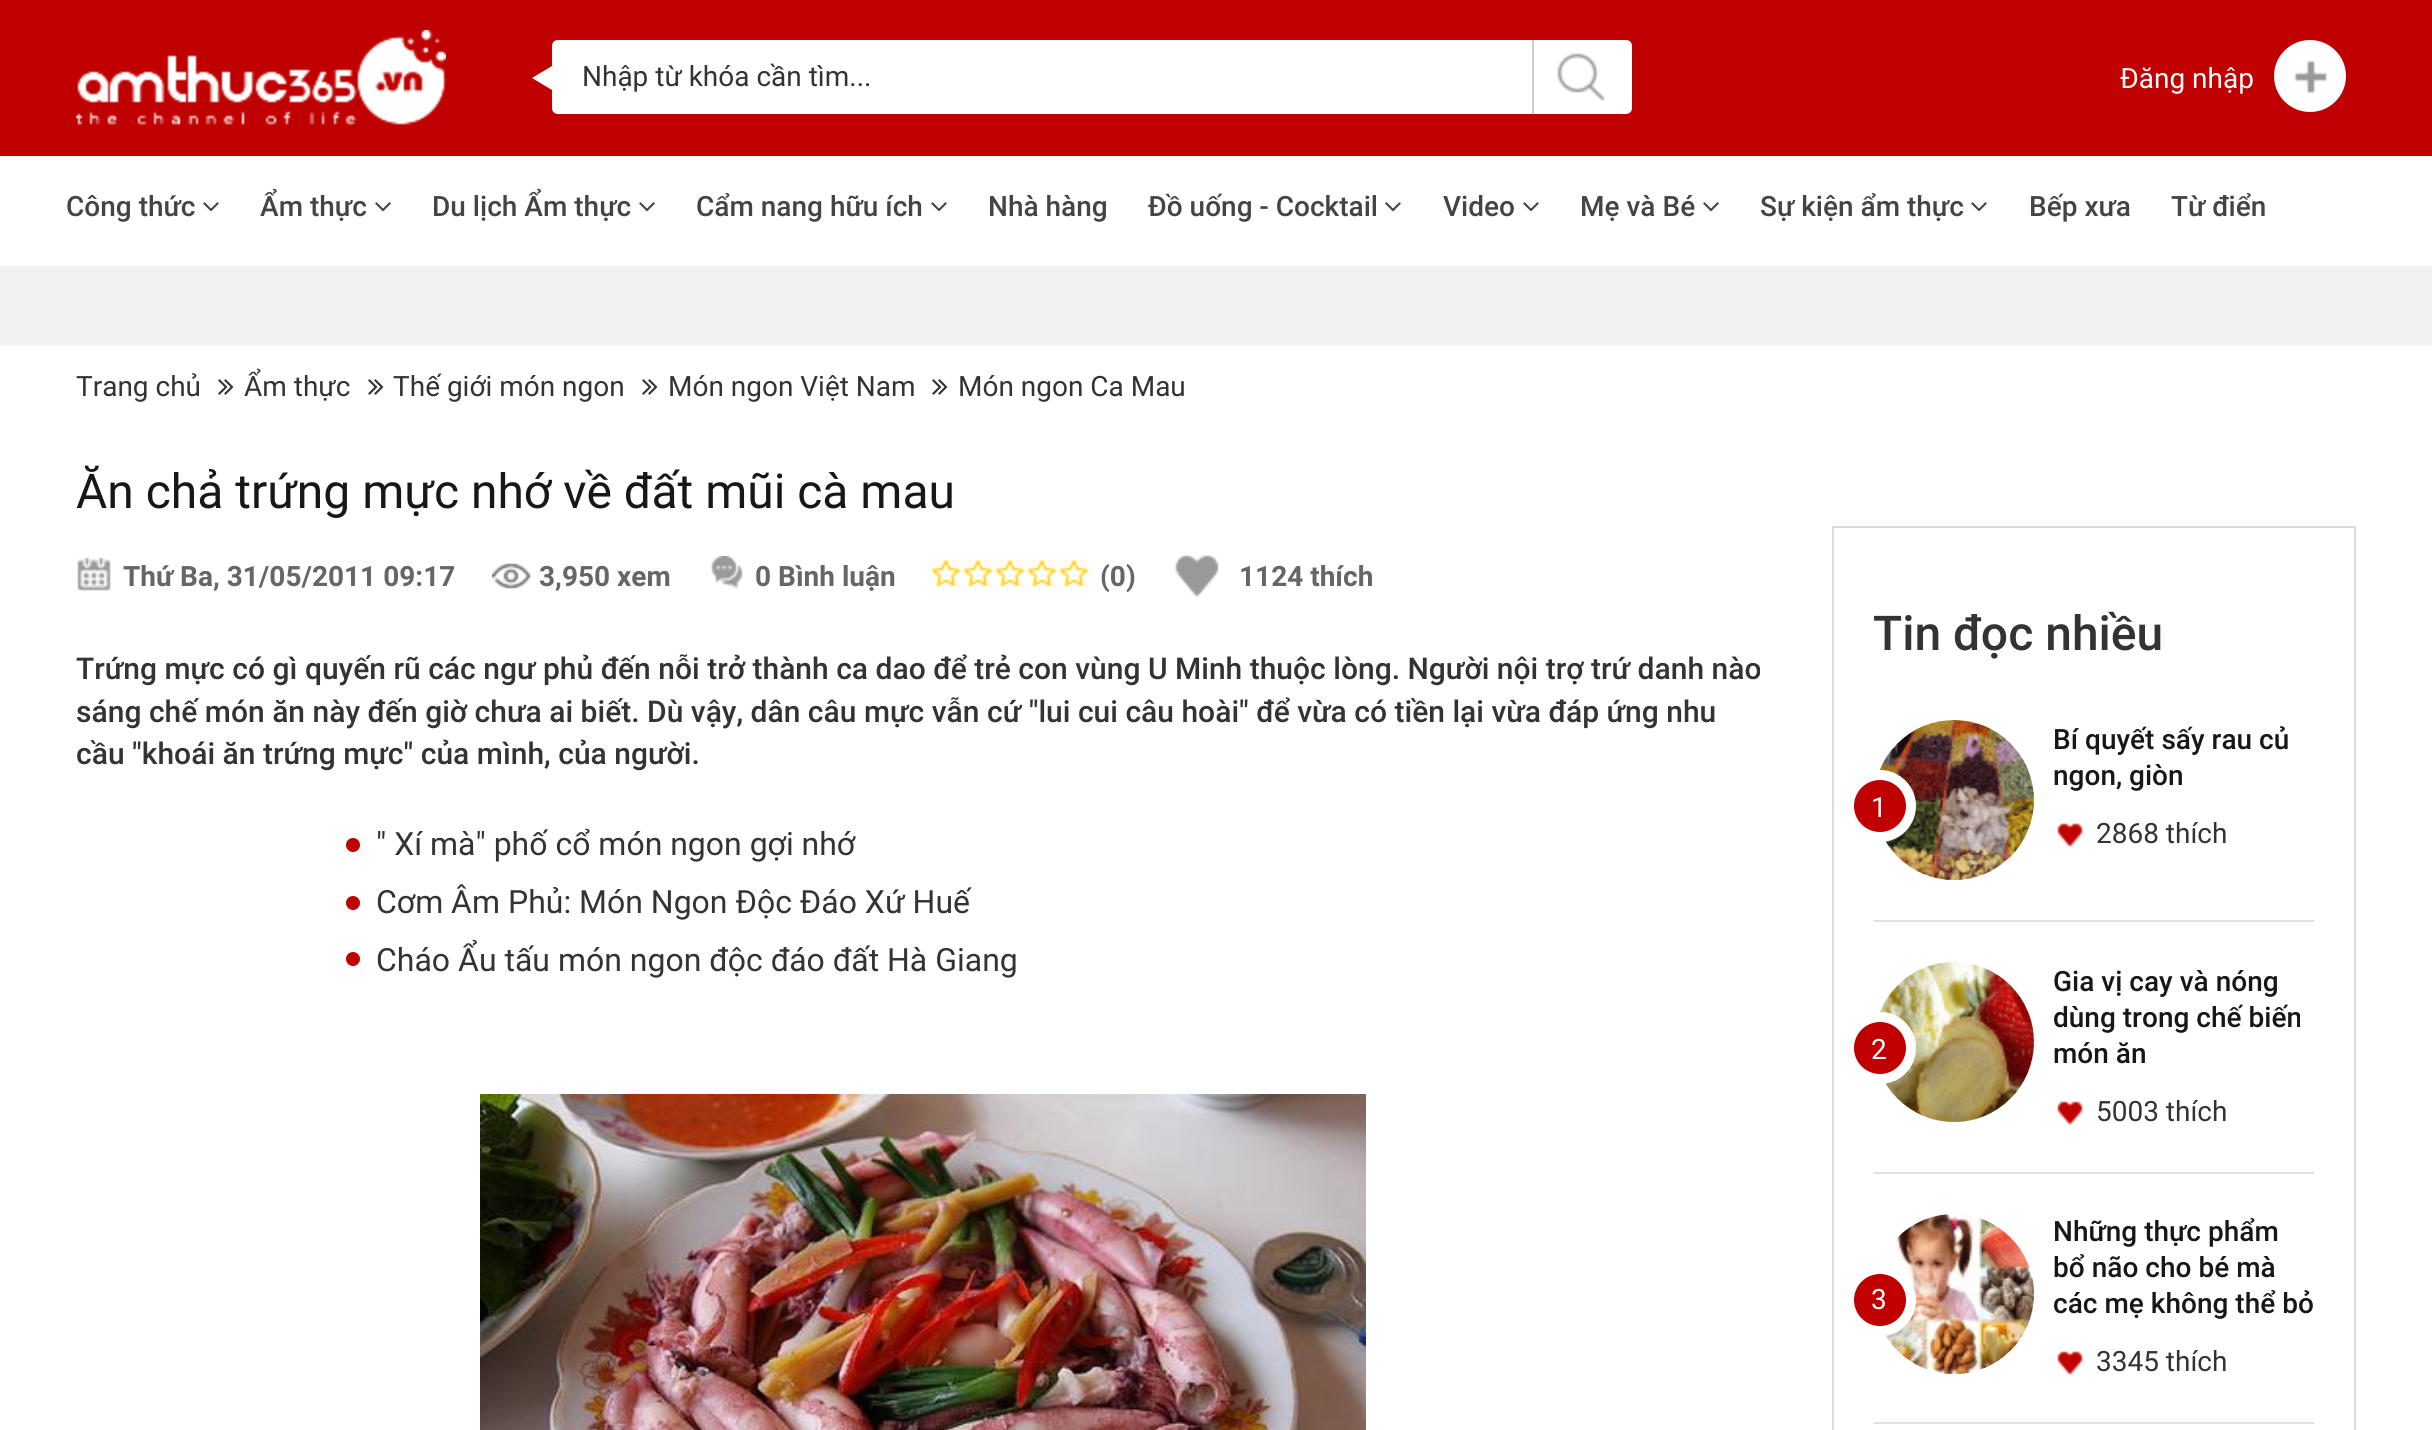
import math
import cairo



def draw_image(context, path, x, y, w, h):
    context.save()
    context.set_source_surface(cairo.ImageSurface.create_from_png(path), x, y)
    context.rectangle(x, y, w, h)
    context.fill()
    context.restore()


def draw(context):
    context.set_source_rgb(1, 1, 1)
    context.paint()
    context.set_source_rgb(192 / 255, 0, 0)
    context.rectangle(0, 0, 2432, 156)
    context.fill()
    draw_image(context, "images/1.png", 76, 30, 370, 96)
    context.set_source_rgb(1, 1, 1)
    context.new_path()
    context.move_to(562, 60)
    context.line_to(562, 96)
    context.line_to(532, 78)
    context.close_path()
    context.fill()
    context.new_path()
    context.move_to(558, 40)
    context.line_to(1532, 40)
    context.line_to(1532, 114)
    context.line_to(558, 114)
    context.curve_to(554.5, 114, 552, 111.5, 552, 108)
    context.line_to(552, 46)
    context.curve_to(552, 42.5, 554.5, 40, 558, 40)
    context.close_path()
    context.fill()
    context.new_path()
    context.move_to(1532, 40)
    context.line_to(1626, 40)
    context.curve_to(1629.5, 40, 1632, 42.5, 1632, 46)
    context.line_to(1632, 108)
    context.curve_to(1632, 111.5, 1629.5, 114, 1626, 114)
    context.line_to(1532, 114)
    context.close_path()
    context.fill()
    draw_image(context, "images/2.png", 1557, 53, 48, 48)
    context.set_source_rgb(201 / 255, 207 / 255, 208 / 255)
    context.rectangle(1532, 40, 2, 74)
    context.fill()
    context.set_source_rgb(1, 1, 1)
    context.arc(2310, 76, 36, 0, 2 * math.pi)
    context.fill()
    draw_image(context, "images/3.png", 2294, 60, 34, 34)
    draw_image(context, "images/4.png", 203, 202, 16, 10)
    draw_image(context, "images/4.png", 375, 202, 16, 10)
    draw_image(context, "images/4.png", 639, 202, 16, 10)
    draw_image(context, "images/4.png", 931, 202, 16, 10)
    draw_image(context, "images/4.png", 1385, 202, 16, 10)
    draw_image(context, "images/4.png", 1523, 202, 16, 10)
    draw_image(context, "images/4.png", 1703, 202, 16, 10)
    draw_image(context, "images/4.png", 1971, 202, 16, 10)
    context.set_source_rgb(240 / 255, 242 / 255, 243 / 255)
    context.rectangle(0, 266, 2432, 80)
    context.fill()
    draw_image(context, "images/5.png", 218, 379, 16, 16)
    draw_image(context, "images/5.png", 368, 379, 16, 16)
    draw_image(context, "images/5.png", 642, 379, 16, 16)
    draw_image(context, "images/5.png", 932, 379, 16, 16)
    draw_image(context, "images/6.png", 77, 557, 34, 34)
    draw_image(context, "images/7.png", 492, 563, 39, 26)
    draw_image(context, "images/8.png", 711, 556, 32, 33)
    draw_image(context, "images/9.png", 932, 560, 160, 26)
    draw_image(context, "images/10.png", 1175, 555, 44, 42)
    context.set_source_rgb(192 / 255, 0, 0)
    context.arc(353, 845, 7, 0, 2 * math.pi)
    context.fill()
    context.arc(353, 903, 7, 0, 2 * math.pi)
    context.fill()
    context.arc(353, 959, 7, 0, 2 * math.pi)
    context.fill()
    draw_image(context, "images/11.png", 480, 1094, 886, 336)
    context.rectangle(1833, 527, 522, 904)
    context.set_source_rgb(217 / 255, 220 / 255, 220 / 255)
    context.stroke()
    context.set_source_rgb(226 / 255, 225 / 255, 225 / 255)
    context.rectangle(1874, 920, 440, 2)
    context.fill()
    draw_image(context, "images/12.png", 1879, 720, 155, 160)
    context.set_source_rgb(1, 1, 1)
    context.arc(1880, 806, 36, 0, 2 * math.pi)
    context.fill()
    context.set_source_rgb(192 / 255, 0, 0)
    context.arc(1880, 806, 26, 0, 2 * math.pi)
    context.fill()
    draw_image(context, "images/13.png", 2057, 823, 26, 24)
    context.set_source_rgb(226 / 255, 225 / 255, 225 / 255)
    context.rectangle(1874, 1172, 440, 2)
    context.fill()
    draw_image(context, "images/14.png", 1879, 962, 155, 160)
    context.set_source_rgb(1, 1, 1)
    context.arc(1880, 1048, 36, 0, 2 * math.pi)
    context.fill()
    context.set_source_rgb(192 / 255, 0, 0)
    context.arc(1880, 1048, 26, 0, 2 * math.pi)
    context.fill()
    draw_image(context, "images/13.png", 2057, 1101, 26, 24)
    context.set_source_rgb(226 / 255, 225 / 255, 225 / 255)
    context.rectangle(1874, 1422, 440, 2)
    context.fill()
    draw_image(context, "images/15.png", 1879, 1214, 155, 160)
    context.set_source_rgb(1, 1, 1)
    context.arc(1880, 1300, 36, 0, 2 * math.pi)
    context.fill()
    context.set_source_rgb(192 / 255, 0, 0)
    context.arc(1880, 1300, 26, 0, 2 * math.pi)
    context.fill()
    draw_image(context, "images/13.png", 2057, 1351, 26, 24)
    context.select_font_face("Roboto")
    context.set_font_size(28)
    context.set_source_rgb(51 / 255, 51 / 255, 51 / 255)
    context.move_to(582, 86)
    context.show_text("Nhập từ khóa cần tìm...")
    context.set_source_rgb(1, 1, 1)
    context.move_to(2120, 88)
    context.show_text("Đăng nhập")
    context.select_font_face("Roboto Medium")
    context.set_source_rgb(68 / 255, 68 / 255, 68 / 255)
    context.move_to(66, 216)
    context.show_text("Công thức")
    context.move_to(260, 216)
    context.show_text("Ẩm thực")
    context.move_to(432, 216)
    context.show_text("Du lịch Ẩm thực")
    context.move_to(696, 216)
    context.show_text("Cẩm nang hữu ích")
    context.move_to(988, 216)
    context.show_text("Nhà hàng")
    context.move_to(1148, 216)
    context.show_text("Đồ uống - Cocktail")
    context.move_to(1443, 216)
    context.show_text("Video")
    context.move_to(1580, 216)
    context.show_text("Mẹ và Bé")
    context.move_to(1760, 216)
    context.show_text("Sự kiện ẩm thực")
    context.move_to(2029, 216)
    context.show_text("Bếp xưa")
    context.move_to(2171, 216)
    context.show_text("Từ điển")
    context.select_font_face("Roboto")
    context.set_source_rgb(51 / 255, 51 / 255, 51 / 255)
    context.move_to(76, 396)
    context.show_text("Trang chủ")
    context.move_to(244, 396)
    context.show_text("Ẩm thực")
    context.move_to(393, 396)
    context.show_text("Thế giới món ngon")
    context.move_to(668, 396)
    context.show_text("Món ngon Việt Nam")
    context.move_to(958, 396)
    context.show_text("Món ngon Ca Mau")
    context.set_font_size(48)
    context.set_source_rgb(21 / 255, 23 / 255, 24 / 255)
    context.move_to(76, 508)
    context.show_text("Ăn chả trứng mực nhớ về đất mũi cà mau")
    context.select_font_face("Roboto", cairo.FontSlant.NORMAL, cairo.FontWeight.BOLD)
    context.set_font_size(28)
    context.set_source_rgb(102 / 255, 102 / 255, 102 / 255)
    context.move_to(123, 586)
    context.show_text("Thứ Ba, 31/05/2011 09:17")
    context.move_to(539, 586)
    context.show_text("3,950 xem")
    context.move_to(755, 586)
    context.show_text("0 Bình luận")
    context.move_to(1100, 586)
    context.show_text("(0)")
    context.move_to(1239, 586)
    context.show_text("1124 thích")
    context.select_font_face("Roboto Medium")
    context.set_font_size(30)
    context.set_source_rgb(51 / 255, 51 / 255, 51 / 255)
    context.move_to(76, 679)
    context.show_text("Trứng mực có gì quyến rũ các ngư phủ đến nỗi trở thành ca dao để trẻ con vùng U Minh thuộc lòng. Người nội trợ trứ danh nào")
    context.move_to(76, 722)
    context.show_text("sáng chế món ăn này đến giờ chưa ai biết. Dù vậy, dân câu mực vẫn cứ \"lui cui câu hoài\" để vừa có tiền lại vừa đáp ứng nhu")
    context.move_to(76, 764)
    context.show_text("cầu \"khoái ăn trứng mực\" của mình, của người.")
    context.select_font_face("Roboto")
    context.set_font_size(32)
    context.move_to(376, 855)
    context.show_text("\" Xí mà\" phố cổ món ngon gợi nhớ")
    context.move_to(376, 913)
    context.show_text("Cơm Âm Phủ: Món Ngon Độc Đáo Xứ Huế")
    context.move_to(376, 971)
    context.show_text("Cháo Ẩu tấu món ngon độc đáo đất Hà Giang")
    context.select_font_face("Roboto Medium")
    context.set_font_size(48)
    context.move_to(1873, 650)
    context.show_text("Tin đọc nhiều")
    context.select_font_face("Roboto")
    context.set_font_size(28)
    context.set_source_rgb(1, 1, 1)
    context.move_to(1871, 817)
    context.show_text("1")
    context.select_font_face("Roboto Medium")
    context.set_source_rgb(21 / 255, 23 / 255, 24 / 255)
    context.move_to(2053, 749)
    context.show_text("Bí quyết sấy rau củ")
    context.move_to(2053, 785)
    context.show_text("ngon, giòn")
    context.select_font_face("Roboto")
    context.set_source_rgb(51 / 255, 51 / 255, 51 / 255)
    context.move_to(2096, 843)
    context.show_text("2868 thích")
    context.set_source_rgb(1, 1, 1)
    context.move_to(1871, 1059)
    context.show_text("2")
    context.select_font_face("Roboto Medium")
    context.set_source_rgb(21 / 255, 23 / 255, 24 / 255)
    context.move_to(2053, 991)
    context.show_text("Gia vị cay và nóng")
    context.move_to(2053, 1027)
    context.show_text("dùng trong chế biến")
    context.move_to(2053, 1063)
    context.show_text("món ăn")
    context.select_font_face("Roboto")
    context.set_source_rgb(51 / 255, 51 / 255, 51 / 255)
    context.move_to(2096, 1121)
    context.show_text("5003 thích")
    context.set_source_rgb(1, 1, 1)
    context.move_to(1871, 1309)
    context.show_text("3")
    context.select_font_face("Roboto Medium")
    context.set_source_rgb(21 / 255, 23 / 255, 24 / 255)
    context.move_to(2053, 1241)
    context.show_text("Những thực phẩm")
    context.move_to(2053, 1277)
    context.show_text("bổ não cho bé mà")
    context.move_to(2053, 1313)
    context.show_text("các mẹ không thể bỏ")
    context.select_font_face("Roboto")
    context.set_source_rgb(51 / 255, 51 / 255, 51 / 255)
    context.move_to(2096, 1371)
    context.show_text("3345 thích")


surface = cairo.ImageSurface(cairo.Format.RGB24, 2432, 1430)
context = cairo.Context(surface)
options = cairo.FontOptions()
options.set_hint_metrics(cairo.HintMetrics.OFF)
options.set_hint_style(cairo.HintStyle.NONE)
context.set_font_options(options)
context.set_miter_limit(4)
draw(context)
surface.write_to_png("out.png")
